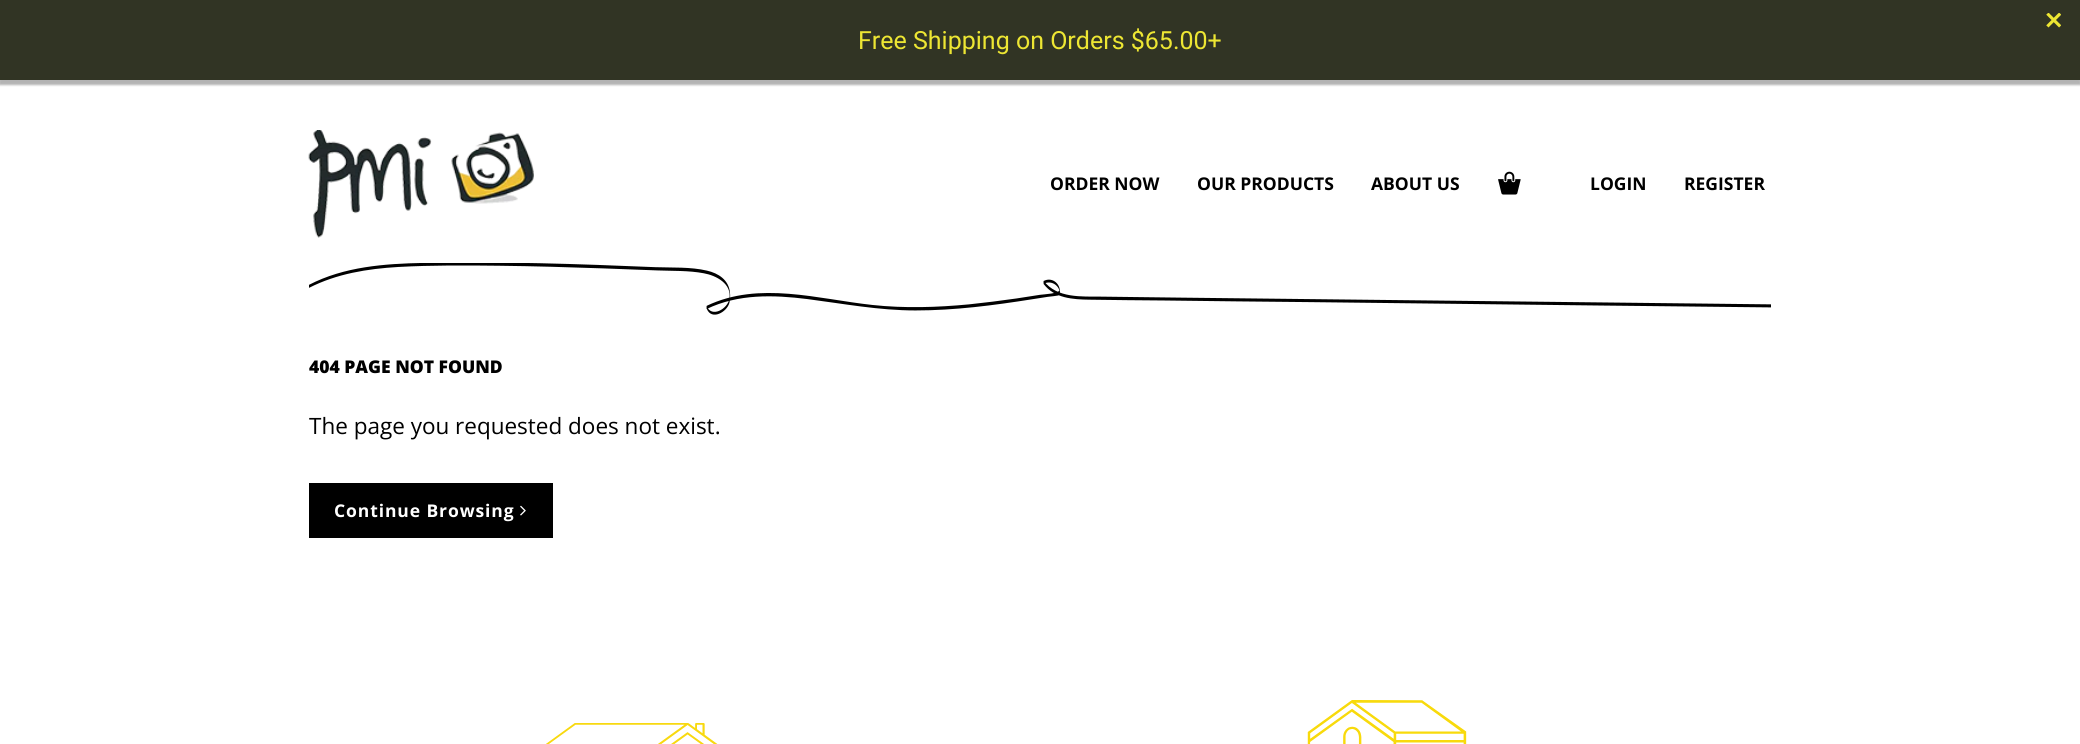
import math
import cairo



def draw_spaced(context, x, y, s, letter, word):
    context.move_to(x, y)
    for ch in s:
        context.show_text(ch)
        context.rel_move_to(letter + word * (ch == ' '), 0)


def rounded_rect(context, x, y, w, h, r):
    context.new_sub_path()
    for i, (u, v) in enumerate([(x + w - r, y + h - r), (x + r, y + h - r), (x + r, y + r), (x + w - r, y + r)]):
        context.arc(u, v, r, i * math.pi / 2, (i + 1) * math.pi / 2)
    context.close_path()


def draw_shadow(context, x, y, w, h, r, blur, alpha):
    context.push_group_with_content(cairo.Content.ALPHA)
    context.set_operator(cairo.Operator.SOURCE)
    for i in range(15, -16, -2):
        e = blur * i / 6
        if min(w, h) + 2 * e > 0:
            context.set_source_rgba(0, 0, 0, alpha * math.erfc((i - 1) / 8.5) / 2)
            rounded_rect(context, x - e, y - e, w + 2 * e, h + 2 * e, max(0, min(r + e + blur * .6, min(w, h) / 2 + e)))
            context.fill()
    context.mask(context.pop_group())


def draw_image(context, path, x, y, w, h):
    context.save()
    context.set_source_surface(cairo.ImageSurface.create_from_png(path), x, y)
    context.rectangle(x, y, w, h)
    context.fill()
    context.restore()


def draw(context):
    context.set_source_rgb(1, 1, 1)
    context.paint()
    context.set_source_rgb(0, 0, 0)
    draw_shadow(context, -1, 3, 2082, 82, 0, 1, 0.3)
    context.set_source_rgb(49 / 255, 52 / 255, 36 / 255)
    context.rectangle(0, 0, 2080, 80)
    context.fill()
    draw_image(context, "images/1.png", 2046, 13, 15, 15)
    draw_image(context, "images/2.png", 308, 130, 226, 108)
    draw_image(context, "images/3.png", 1498, 171, 23, 24)
    draw_image(context, "images/4.png", 309, 263, 1462, 52)
    context.set_source_rgb(0, 0, 0)
    context.rectangle(309, 483, 244, 55)
    context.fill()
    draw_image(context, "images/5.png", 520, 505, 6, 11)
    draw_image(context, "images/6.png", 546, 700, 921, 44)
    context.select_font_face("Roboto")
    context.set_font_size(25)
    context.set_source_rgb(237 / 255, 230 / 255, 51 / 255)
    context.move_to(858, 49)
    context.show_text("Free Shipping on Orders $65.00+")
    context.select_font_face("Open Sans", cairo.FontSlant.NORMAL, cairo.FontWeight.BOLD)
    context.set_font_size(17.5)
    context.set_source_rgb(0, 0, 0)
    context.move_to(1050, 190)
    context.show_text("ORDER NOW")
    context.move_to(1197, 190)
    context.show_text("OUR PRODUCTS")
    context.move_to(1371, 190)
    context.show_text("ABOUT US")
    context.move_to(1590, 190)
    context.show_text("LOGIN")
    context.move_to(1684, 190)
    context.show_text("REGISTER")
    context.select_font_face("Open Sans ExtraBold")
    context.move_to(309, 373)
    context.show_text("404 PAGE NOT FOUND")
    context.select_font_face("Open Sans")
    context.set_font_size(22.5)
    context.move_to(309, 434)
    context.show_text("The page you requested does not exist.")
    context.select_font_face("Open Sans", cairo.FontSlant.NORMAL, cairo.FontWeight.BOLD)
    context.set_font_size(17.5)
    context.set_source_rgb(1, 1, 1)
    draw_spaced(context, 334, 517, "Continue Browsing", 0.9, 0)


surface = cairo.ImageSurface(cairo.Format.RGB24, 2080, 744)
context = cairo.Context(surface)
options = cairo.FontOptions()
options.set_hint_metrics(cairo.HintMetrics.OFF)
options.set_hint_style(cairo.HintStyle.NONE)
context.set_font_options(options)
context.set_miter_limit(4)
draw(context)
surface.write_to_png("out.png")
